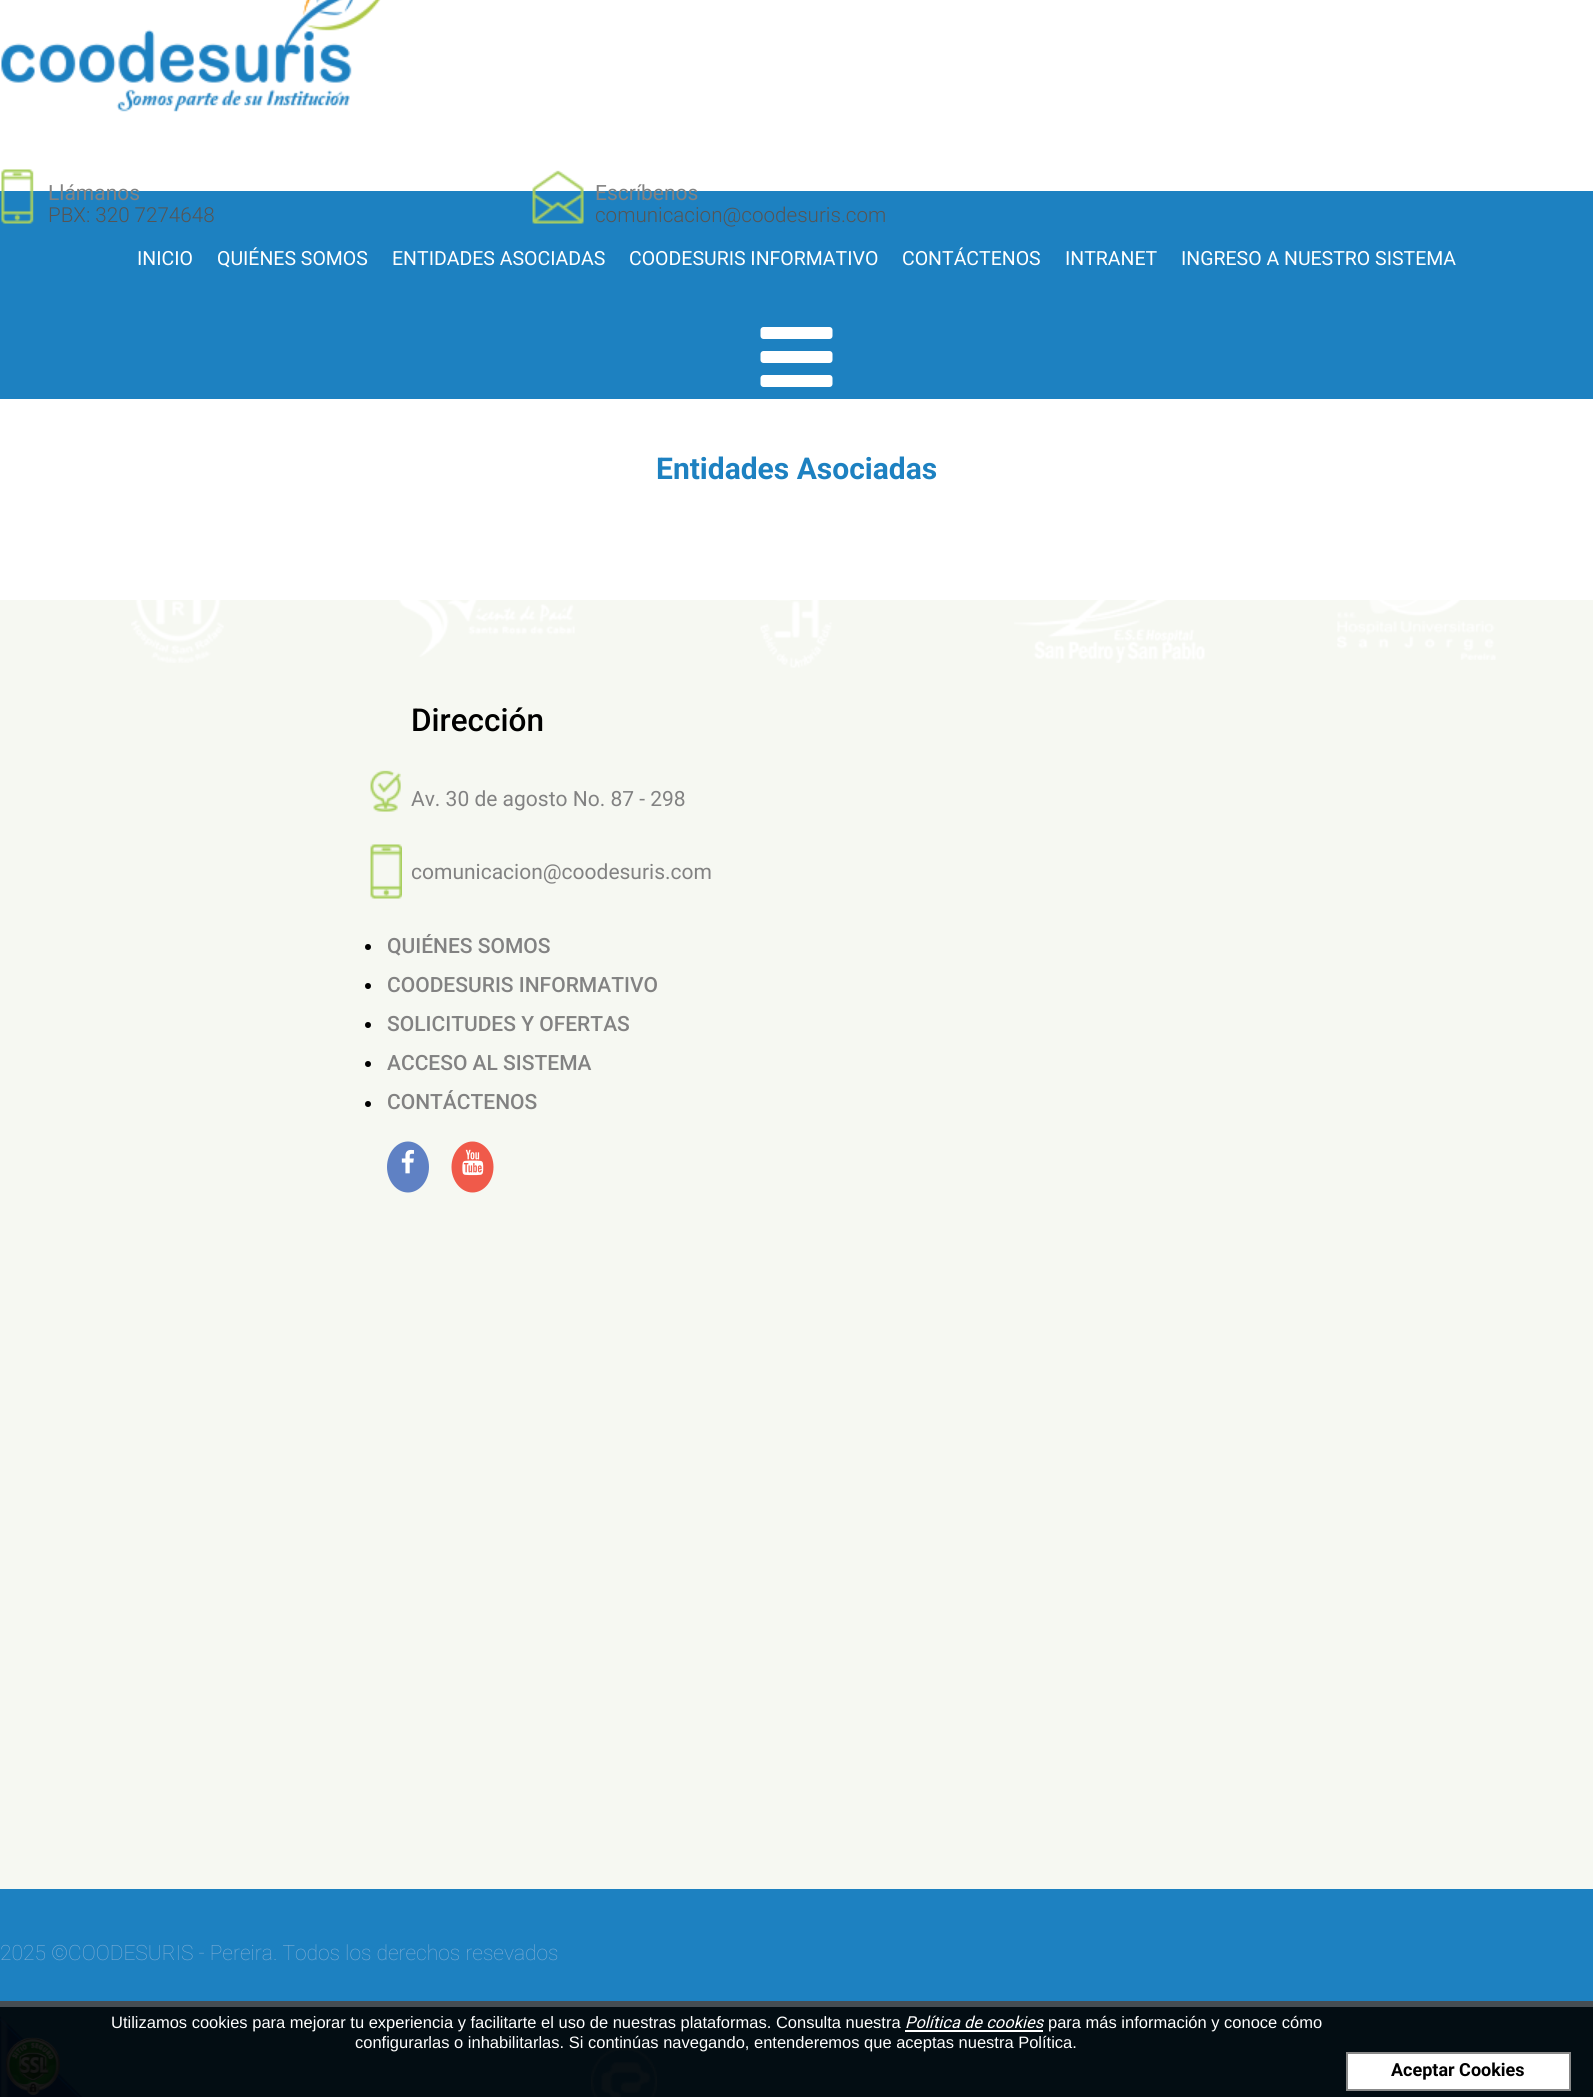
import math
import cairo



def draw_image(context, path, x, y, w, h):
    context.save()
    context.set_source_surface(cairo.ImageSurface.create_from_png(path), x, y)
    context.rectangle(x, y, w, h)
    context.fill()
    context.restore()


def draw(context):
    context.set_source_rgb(1, 1, 1)
    context.paint()
    draw_image(context, "images/1.png", 1, 0, 380, 112)
    context.set_source_rgb(29 / 255, 129 / 255, 193 / 255)
    context.rectangle(0, 191, 1593, 208)
    context.fill()
    draw_image(context, "images/2.png", 1, 169, 33, 55)
    draw_image(context, "images/3.png", 532, 170, 52, 54)
    draw_image(context, "images/4.png", 760, 327, 73, 60)
    context.set_source_rgb(246 / 255, 248 / 255, 242 / 255)
    context.rectangle(0, 600, 1593, 1289)
    context.fill()
    draw_image(context, "images/5.png", 131, 600, 93, 63)
    draw_image(context, "images/6.png", 399, 600, 176, 57)
    draw_image(context, "images/7.png", 760, 600, 72, 68)
    draw_image(context, "images/8.png", 1014, 600, 191, 63)
    draw_image(context, "images/9.png", 1337, 600, 159, 60)
    draw_image(context, "images/10.png", 370, 770, 31, 42)
    draw_image(context, "images/11.png", 370, 844, 32, 55)
    context.set_source_rgb(0, 0, 0)
    context.arc(368, 947, 3, 0, 2 * math.pi)
    context.fill()
    context.arc(368, 986, 3, 0, 2 * math.pi)
    context.fill()
    context.arc(368, 1025, 3, 0, 2 * math.pi)
    context.fill()
    context.arc(368, 1064, 3, 0, 2 * math.pi)
    context.fill()
    context.arc(368, 1104, 3, 0, 2 * math.pi)
    context.fill()
    context.set_source_rgb(95 / 255, 129 / 255, 196 / 255)
    context.new_path()
    context.move_to(408, 1141.5)
    context.curve_to(419.5, 1141.5, 429, 1153, 429, 1167)
    context.curve_to(429, 1181, 419.5, 1192.5, 408, 1192.5)
    context.curve_to(396.5, 1192.5, 387, 1181, 387, 1167)
    context.curve_to(387, 1153, 396.5, 1141.5, 408, 1141.5)
    context.close_path()
    context.fill()
    draw_image(context, "images/12.png", 401, 1149, 13, 25)
    context.set_source_rgb(240 / 255, 90 / 255, 74 / 255)
    context.new_path()
    context.move_to(472.5, 1141.5)
    context.curve_to(484, 1141.5, 493.5, 1153, 493.5, 1167)
    context.curve_to(493.5, 1181, 484, 1192.5, 472.5, 1192.5)
    context.curve_to(461, 1192.5, 451.5, 1181, 451.5, 1167)
    context.curve_to(451.5, 1153, 461, 1141.5, 472.5, 1141.5)
    context.close_path()
    context.fill()
    draw_image(context, "images/13.png", 462, 1149, 22, 27)
    context.set_source_rgb(29 / 255, 129 / 255, 193 / 255)
    context.rectangle(0, 1889, 1593, 112)
    context.fill()
    context.set_source_rgb(3 / 255, 13 / 255, 19 / 255)
    context.rectangle(0, 2001, 1593, 96)
    context.fill()
    draw_image(context, "images/14.png", 591, 2047, 66, 50)
    draw_image(context, "images/15.png", 0, 2016, 83, 81)
    context.set_source_rgba(1, 1, 1, 0.27)
    context.rectangle(0, 2001, 1593, 6)
    context.fill()
    context.set_source_rgb(1, 1, 1)
    context.rectangle(905, 2030, 138, 2)
    context.fill()
    context.rectangle(1347, 2053, 223, 37)
    context.fill_preserve()
    context.set_source_rgb(136 / 255, 136 / 255, 136 / 255)
    context.stroke()
    context.select_font_face("Roboto")
    context.set_font_size(21)
    context.set_source_rgb(130 / 255, 130 / 255, 130 / 255)
    context.move_to(48, 200)
    context.show_text("Llámanos")
    context.select_font_face("Roboto Light")
    context.set_font_size(20.6)
    context.set_source_rgb(85 / 255, 85 / 255, 85 / 255)
    context.move_to(48, 222)
    context.show_text("PBX: 320 7274648")
    context.select_font_face("Roboto")
    context.set_font_size(21)
    context.set_source_rgb(130 / 255, 130 / 255, 130 / 255)
    context.move_to(595, 200)
    context.show_text("Escríbenos")
    context.select_font_face("Roboto Light")
    context.set_font_size(20.6)
    context.set_source_rgb(85 / 255, 85 / 255, 85 / 255)
    context.move_to(595, 222)
    context.show_text("comunicacion@coodesuris.com")
    context.select_font_face("Roboto")
    context.set_font_size(19.5)
    context.set_source_rgb(1, 1, 1)
    context.move_to(137, 265)
    context.show_text("INICIO")
    context.move_to(217, 265)
    context.show_text("QUIÉNES SOMOS")
    context.move_to(392, 265)
    context.show_text("ENTIDADES ASOCIADAS")
    context.move_to(629, 265)
    context.show_text("COODESURIS INFORMATIVO")
    context.move_to(902, 265)
    context.show_text("CONTÁCTENOS")
    context.move_to(1065, 265)
    context.show_text("INTRANET")
    context.move_to(1181, 265)
    context.show_text("INGRESO A NUESTRO SISTEMA")
    context.select_font_face("Roboto", cairo.FontSlant.NORMAL, cairo.FontWeight.BOLD)
    context.set_font_size(30)
    context.set_source_rgb(29 / 255, 129 / 255, 193 / 255)
    context.move_to(656, 479)
    context.show_text("Entidades Asociadas")
    context.select_font_face("Roboto Medium")
    context.set_font_size(31.5)
    context.set_source_rgb(0, 0, 0)
    context.move_to(411, 731)
    context.show_text("Dirección")
    context.select_font_face("Roboto")
    context.set_font_size(21)
    context.set_source_rgb(130 / 255, 130 / 255, 130 / 255)
    context.move_to(411, 806)
    context.show_text("Av. 30 de agosto No. 87 - 298")
    context.move_to(411, 879)
    context.show_text("comunicacion@coodesuris.com")
    context.select_font_face("Roboto Medium")
    context.move_to(387, 953)
    context.show_text("QUIÉNES SOMOS")
    context.move_to(387, 992)
    context.show_text("COODESURIS INFORMATIVO")
    context.move_to(387, 1031)
    context.show_text("SOLICITUDES Y OFERTAS")
    context.move_to(387, 1070)
    context.show_text("ACCESO AL SISTEMA")
    context.move_to(387, 1109)
    context.show_text("CONTÁCTENOS")
    context.select_font_face("Roboto Thin")
    context.set_source_rgb(125 / 255, 173 / 255, 213 / 255)
    context.move_to(0, 1960)
    context.show_text("2025 ©COODESURIS - Pereira. Todos los derechos resevados")
    context.select_font_face("Liberation Sans")
    context.set_font_size(16.5)
    context.set_source_rgb(1, 1, 1)
    context.move_to(111, 2028)
    context.show_text("Utilizamos cookies para mejorar tu experiencia y facilitarte el uso de nuestras plataformas. Consulta nuestra")
    context.select_font_face("Roboto", cairo.FontSlant.ITALIC)
    context.move_to(905, 2028)
    context.show_text("Política de cookies")
    context.select_font_face("Liberation Sans")
    context.move_to(1048, 2028)
    context.show_text("para más información y conoce cómo")
    context.move_to(355, 2048)
    context.show_text("configurarlas o inhabilitarlas. Si continúas navegando, entenderemos que aceptas nuestra Política.")
    context.select_font_face("Roboto", cairo.FontSlant.NORMAL, cairo.FontWeight.BOLD)
    context.set_font_size(18)
    context.set_source_rgb(0, 0, 0)
    context.move_to(1391, 2076)
    context.show_text("Aceptar Cookies")


surface = cairo.ImageSurface(cairo.Format.RGB24, 1593, 2097)
context = cairo.Context(surface)
options = cairo.FontOptions()
options.set_hint_metrics(cairo.HintMetrics.OFF)
options.set_hint_style(cairo.HintStyle.NONE)
context.set_font_options(options)
context.set_miter_limit(4)
draw(context)
surface.write_to_png("out.png")
